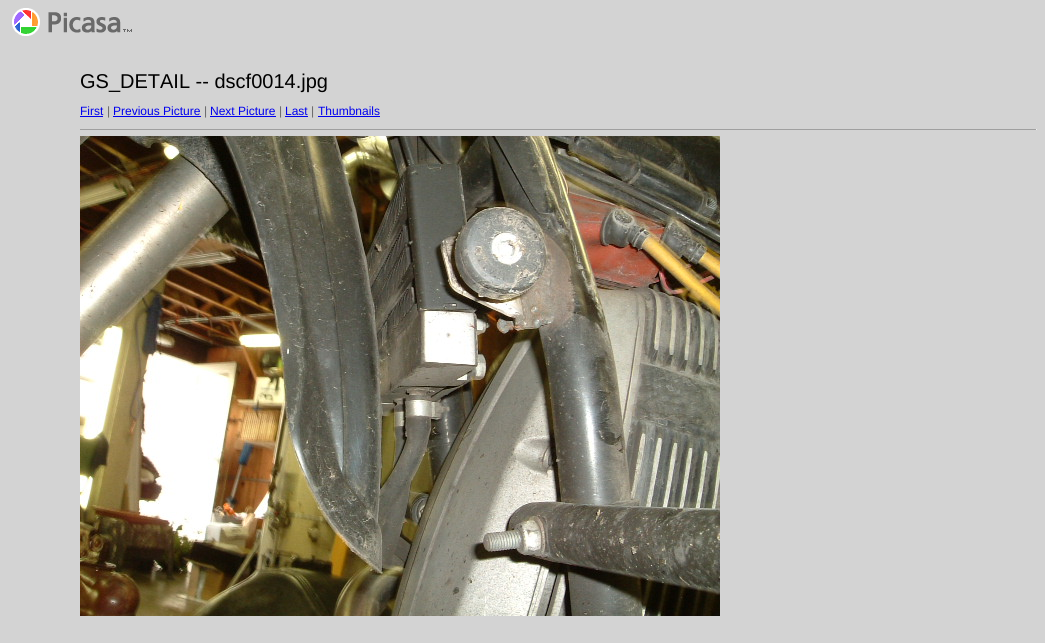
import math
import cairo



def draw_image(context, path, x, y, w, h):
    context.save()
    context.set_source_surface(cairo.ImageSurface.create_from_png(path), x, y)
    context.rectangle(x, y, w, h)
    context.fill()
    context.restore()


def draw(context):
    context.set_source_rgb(211 / 255, 211 / 255, 211 / 255)
    context.paint()
    draw_image(context, "images/1.png", 12, 8, 120, 28)
    context.set_source_rgb(0, 0, 238 / 255)
    context.rectangle(80, 116, 23, 1)
    context.fill()
    context.rectangle(113, 116, 88, 1)
    context.fill()
    context.rectangle(210, 116, 66, 1)
    context.fill()
    context.rectangle(285, 116, 23, 1)
    context.fill()
    context.rectangle(318, 116, 62, 1)
    context.fill()
    context.set_source_rgb(159 / 255, 159 / 255, 159 / 255)
    context.rectangle(80, 129, 957, 1)
    context.fill()
    context.set_source_rgb(238 / 255, 238 / 255, 238 / 255)
    context.rectangle(1036, 129, 1, 1)
    context.fill()
    draw_image(context, "images/2.png", 80, 136, 640, 480)
    context.select_font_face("Liberation Sans")
    context.set_font_size(20)
    context.set_source_rgb(0, 0, 0)
    context.move_to(80, 88)
    context.show_text("GS_DETAIL -- dscf0014.jpg")
    context.set_font_size(12)
    context.set_source_rgb(0, 0, 238 / 255)
    context.move_to(80, 115)
    context.show_text("First")
    context.set_source_rgb(102 / 255, 102 / 255, 102 / 255)
    context.move_to(107, 115)
    context.show_text("|")
    context.set_source_rgb(0, 0, 238 / 255)
    context.move_to(113, 115)
    context.show_text("Previous Picture")
    context.set_source_rgb(102 / 255, 102 / 255, 102 / 255)
    context.move_to(204, 115)
    context.show_text("|")
    context.set_source_rgb(0, 0, 238 / 255)
    context.move_to(210, 115)
    context.show_text("Next Picture")
    context.set_source_rgb(102 / 255, 102 / 255, 102 / 255)
    context.move_to(279, 115)
    context.show_text("|")
    context.set_source_rgb(0, 0, 238 / 255)
    context.move_to(285, 115)
    context.show_text("Last")
    context.set_source_rgb(102 / 255, 102 / 255, 102 / 255)
    context.move_to(311, 115)
    context.show_text("|")
    context.set_source_rgb(0, 0, 238 / 255)
    context.move_to(318, 115)
    context.show_text("Thumbnails")


surface = cairo.ImageSurface(cairo.Format.RGB24, 1045, 643)
context = cairo.Context(surface)
options = cairo.FontOptions()
options.set_hint_metrics(cairo.HintMetrics.OFF)
options.set_hint_style(cairo.HintStyle.NONE)
context.set_font_options(options)
context.set_miter_limit(4)
draw(context)
surface.write_to_png("out.png")
